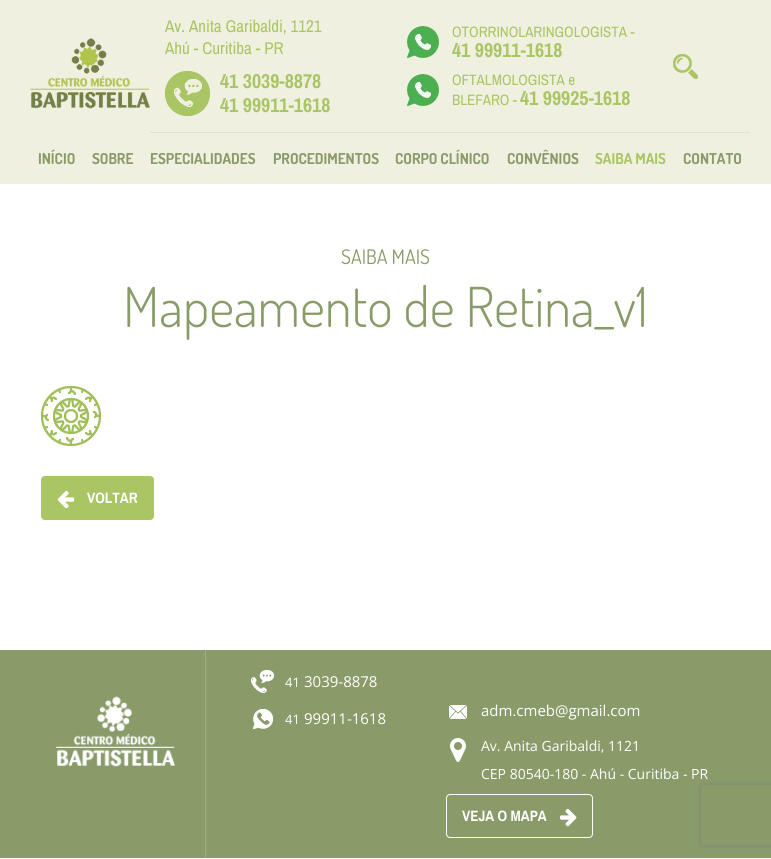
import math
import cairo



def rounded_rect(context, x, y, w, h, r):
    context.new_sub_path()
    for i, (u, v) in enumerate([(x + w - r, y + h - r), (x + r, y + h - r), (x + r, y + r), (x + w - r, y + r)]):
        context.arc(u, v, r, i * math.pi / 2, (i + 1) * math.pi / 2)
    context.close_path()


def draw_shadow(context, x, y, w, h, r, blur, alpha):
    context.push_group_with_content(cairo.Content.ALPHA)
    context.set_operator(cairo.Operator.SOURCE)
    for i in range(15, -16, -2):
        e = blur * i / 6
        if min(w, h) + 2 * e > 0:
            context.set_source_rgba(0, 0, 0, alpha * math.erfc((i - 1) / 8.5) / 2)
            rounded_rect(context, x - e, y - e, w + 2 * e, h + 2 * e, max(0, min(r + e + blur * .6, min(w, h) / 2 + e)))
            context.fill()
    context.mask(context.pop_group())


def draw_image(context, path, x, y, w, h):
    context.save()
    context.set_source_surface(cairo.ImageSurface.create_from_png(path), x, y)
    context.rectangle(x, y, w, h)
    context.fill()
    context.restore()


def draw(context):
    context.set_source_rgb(1, 1, 1)
    context.paint()
    context.set_source_rgb(240 / 255, 240 / 255, 225 / 255)
    context.rectangle(0, 0, 771, 184)
    context.fill()
    draw_image(context, "images/1.png", 30, 38, 120, 71)
    context.set_source_rgb(223 / 255, 223 / 255, 208 / 255)
    context.rectangle(150, 132, 600, 1)
    context.fill()
    draw_image(context, "images/2.png", 165, 71, 45, 45)
    draw_image(context, "images/3.png", 407, 26, 32, 32)
    draw_image(context, "images/3.png", 407, 74, 32, 32)
    draw_image(context, "images/4.png", 673, 54, 25, 25)
    draw_image(context, "images/5.png", 41, 386, 60, 60)
    context.set_source_rgb(169 / 255, 197 / 255, 100 / 255)
    rounded_rect(context, 41.5, 476.5, 112, 43, 3.5)
    context.fill_preserve()
    context.set_line_width(1)
    context.stroke()
    draw_image(context, "images/6.png", 57, 490, 18, 19)
    context.set_source_rgb(136 / 255, 155 / 255, 105 / 255)
    context.rectangle(0, 650, 771, 208)
    context.fill()
    context.set_source_rgb(158 / 255, 173 / 255, 133 / 255)
    context.rectangle(205, 650, 1, 208)
    context.fill()
    draw_image(context, "images/7.png", 56, 696, 119, 71)
    draw_image(context, "images/8.png", 251, 670, 23, 23)
    draw_image(context, "images/9.png", 253, 709, 20, 20)
    draw_image(context, "images/10.png", 449, 705, 18, 14)
    draw_image(context, "images/11.png", 450, 738, 16, 24)
    rounded_rect(context, 446.5, 794.5, 146, 43, 3.5)
    context.set_source_rgb(1, 1, 1)
    context.stroke()
    draw_image(context, "images/12.png", 560, 808, 17, 19)
    context.save()
    context.set_fill_rule(cairo.FillRule.EVEN_ODD)
    context.new_path()
    context.move_to(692, 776)
    context.line_to(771, 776)
    context.line_to(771, 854)
    context.line_to(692, 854)
    context.close_path()
    context.move_to(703, 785)
    context.line_to(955, 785)
    context.curve_to(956, 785, 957, 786, 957, 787)
    context.line_to(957, 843)
    context.curve_to(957, 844, 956, 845, 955, 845)
    context.line_to(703, 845)
    context.curve_to(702, 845, 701, 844, 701, 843)
    context.line_to(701, 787)
    context.curve_to(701, 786, 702, 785, 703, 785)
    context.close_path()
    context.clip()
    context.set_source_rgb(128 / 255, 128 / 255, 128 / 255)
    draw_shadow(context, 701, 785, 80, 60, 2, 2.5, 1)
    context.restore()
    context.select_font_face("Archivo Narrow")
    context.set_font_size(17)
    context.set_source_rgb(169 / 255, 197 / 255, 100 / 255)
    context.move_to(165, 32)
    context.show_text("Av. Anita Garibaldi, 1121")
    context.move_to(165, 54)
    context.show_text("Ahú - Curitiba - PR")
    context.select_font_face("Archivo Narrow", cairo.FontSlant.NORMAL, cairo.FontWeight.BOLD)
    context.set_font_size(20)
    context.move_to(220, 88)
    context.show_text("41 3039-8878")
    context.move_to(220, 112)
    context.show_text("41 99911-1618")
    context.select_font_face("Archivo Narrow")
    context.set_font_size(15)
    context.move_to(452, 37)
    context.show_text("OTORRINOLARINGOLOGISTA -")
    context.select_font_face("Archivo Narrow", cairo.FontSlant.NORMAL, cairo.FontWeight.BOLD)
    context.set_font_size(20)
    context.move_to(452, 57)
    context.show_text("41 99911-1618")
    context.select_font_face("Archivo Narrow")
    context.set_font_size(15)
    context.move_to(452, 85)
    context.show_text("OFTALMOLOGISTA e")
    context.move_to(452, 105)
    context.show_text("BLEFARO -")
    context.select_font_face("Archivo Narrow", cairo.FontSlant.NORMAL, cairo.FontWeight.BOLD)
    context.set_font_size(20)
    context.move_to(520, 105)
    context.show_text("41 99925-1618")
    context.select_font_face("Dosis", cairo.FontSlant.NORMAL, cairo.FontWeight.BOLD)
    context.set_font_size(15)
    context.set_source_rgb(136 / 255, 155 / 255, 105 / 255)
    context.move_to(38, 164)
    context.show_text("INÍCIO")
    context.move_to(92, 164)
    context.show_text("SOBRE")
    context.move_to(150, 164)
    context.show_text("ESPECIALIDADES")
    context.move_to(273, 164)
    context.show_text("PROCEDIMENTOS")
    context.move_to(395, 164)
    context.show_text("CORPO CLÍNICO")
    context.move_to(507, 164)
    context.show_text("CONVÊNIOS")
    context.set_source_rgb(169 / 255, 197 / 255, 100 / 255)
    context.move_to(595, 164)
    context.show_text("SAIBA MAIS")
    context.set_source_rgb(136 / 255, 155 / 255, 105 / 255)
    context.move_to(683, 164)
    context.show_text("CONTATO")
    context.select_font_face("Dosis")
    context.set_font_size(20)
    context.move_to(341, 264)
    context.show_text("SAIBA MAIS")
    context.select_font_face("Dosis Light")
    context.set_font_size(55)
    context.move_to(123, 327)
    context.show_text("Mapeamento de Retina_v1")
    context.select_font_face("Archivo Narrow", cairo.FontSlant.NORMAL, cairo.FontWeight.BOLD)
    context.set_font_size(15)
    context.set_source_rgb(1, 1, 1)
    context.move_to(87, 503)
    context.show_text("VOLTAR")
    context.select_font_face("Open Sans")
    context.set_font_size(13)
    context.move_to(285, 687)
    context.show_text("41")
    context.set_font_size(15)
    context.move_to(304, 687)
    context.show_text("3039-8878")
    context.set_font_size(13)
    context.move_to(285, 724)
    context.show_text("41")
    context.set_font_size(15)
    context.move_to(304, 724)
    context.show_text("99911-1618")
    context.move_to(481, 716)
    context.show_text("adm.cmeb@gmail.com")
    context.set_font_size(14)
    context.move_to(481, 751)
    context.show_text("Av. Anita Garibaldi, 1121")
    context.move_to(481, 779)
    context.show_text("CEP 80540-180 - Ahú - Curitiba - PR")
    context.select_font_face("Archivo Narrow", cairo.FontSlant.NORMAL, cairo.FontWeight.BOLD)
    context.set_font_size(15)
    context.move_to(462, 821)
    context.show_text("VEJA O MAPA")


surface = cairo.ImageSurface(cairo.Format.RGB24, 771, 859)
context = cairo.Context(surface)
options = cairo.FontOptions()
options.set_hint_metrics(cairo.HintMetrics.OFF)
options.set_hint_style(cairo.HintStyle.NONE)
context.set_font_options(options)
context.set_miter_limit(4)
draw(context)
surface.write_to_png("out.png")
